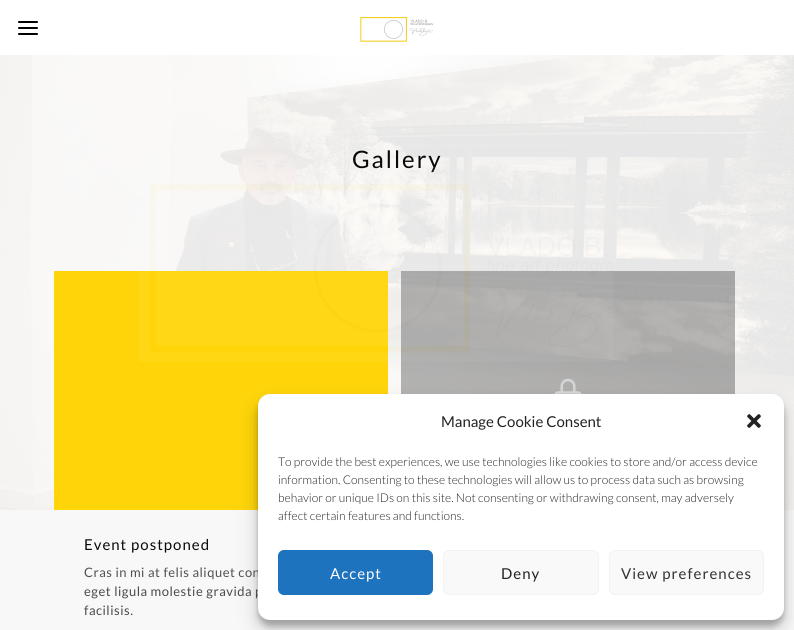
import math
import cairo



def draw_spaced(context, x, y, s, letter, word):
    context.move_to(x, y)
    for ch in s:
        context.show_text(ch)
        context.rel_move_to(letter + word * (ch == ' '), 0)


def rounded_rect(context, x, y, w, h, r):
    context.new_sub_path()
    for i, (u, v) in enumerate([(x + w - r, y + h - r), (x + r, y + h - r), (x + r, y + r), (x + w - r, y + r)]):
        context.arc(u, v, r, i * math.pi / 2, (i + 1) * math.pi / 2)
    context.close_path()


def draw_shadow(context, x, y, w, h, r, blur, alpha):
    context.push_group_with_content(cairo.Content.ALPHA)
    context.set_operator(cairo.Operator.SOURCE)
    for i in range(15, -16, -2):
        e = blur * i / 6
        if min(w, h) + 2 * e > 0:
            context.set_source_rgba(0, 0, 0, alpha * math.erfc((i - 1) / 8.5) / 2)
            rounded_rect(context, x - e, y - e, w + 2 * e, h + 2 * e, max(0, min(r + e + blur * .6, min(w, h) / 2 + e)))
            context.fill()
    context.mask(context.pop_group())


def draw_image(context, path, x, y, w, h):
    context.save()
    context.set_source_surface(cairo.ImageSurface.create_from_png(path), x, y)
    context.rectangle(x, y, w, h)
    context.fill()
    context.restore()


def draw(context):
    context.set_source_rgb(248 / 255, 248 / 255, 248 / 255)
    context.paint()
    draw_image(context, "images/1.png", 0, 55, 794, 455)
    context.set_source_rgb(1, 1, 1)
    context.rectangle(0, 0, 794, 55)
    context.fill()
    draw_image(context, "images/2.png", 360, 17, 74, 25)
    draw_image(context, "images/3.png", 18, 21, 20, 14)
    context.set_source_rgba(10 / 255, 10 / 255, 10 / 255, 0.3)
    context.rectangle(401, 271, 334, 123)
    context.fill()
    draw_image(context, "images/4.png", 554, 378, 28, 16)
    context.set_source_rgb(1, 213 / 255, 10 / 255)
    context.rectangle(54, 271, 334, 239)
    context.fill()
    context.set_source_rgb(0, 0, 0)
    draw_shadow(context, 258, 400, 526, 226, 12, 3, 0.23)
    draw_shadow(context, 258, 404, 526, 226, 12, 10, 0.19)
    context.select_font_face("Lato")
    context.set_font_size(24)
    context.set_source_rgb(10 / 255, 10 / 255, 10 / 255)
    draw_spaced(context, 352, 168, "Gallery", 2, 0)
    context.set_font_size(15)
    draw_spaced(context, 84, 550, "Event postponed", 1, 0)
    context.set_font_size(13)
    context.set_source_rgb(81 / 255, 81 / 255, 81 / 255)
    draw_spaced(context, 84, 577, "Cras in mi at felis aliquet con", 0.5, 0)
    context.set_source_rgb(74 / 255, 74 / 255, 74 / 255)
    draw_spaced(context, 84, 596, "eget ligula molestie gravida p", 0.5, 0)
    draw_spaced(context, 84, 615, "facilisis.", 0.5, 0)
    draw_image(context, "images/5.png", 139, 169, 474, 193)
    context.set_source_rgb(1, 1, 1)
    rounded_rect(context, 258, 394, 526, 226, 12)
    context.fill()
    context.set_font_size(15)
    context.set_source_rgb(34 / 255, 34 / 255, 34 / 255)
    context.move_to(441, 427)
    context.show_text("Manage Cookie Consent")
    draw_image(context, "images/6.png", 747, 414, 14, 14)
    context.select_font_face("Lato Light")
    context.set_font_size(12)
    context.move_to(278, 466)
    context.show_text("To provide the best experiences, we use technologies like cookies to store and/or access device")
    context.move_to(278, 484)
    context.show_text("information. Consenting to these technologies will allow us to process data such as browsing")
    context.move_to(278, 502)
    context.show_text("behavior or unique IDs on this site. Not consenting or withdrawing consent, may adversely")
    context.move_to(278, 520)
    context.show_text("affect certain features and functions.")
    context.set_source_rgb(30 / 255, 115 / 255, 190 / 255)
    rounded_rect(context, 278.5, 550.5, 154, 44, 5.5)
    context.fill_preserve()
    context.set_line_width(1)
    context.stroke()
    context.select_font_face("Lato")
    context.set_font_size(15)
    context.set_source_rgb(1, 1, 1)
    draw_spaced(context, 330, 579, "Accept", 1, 0)
    context.set_source_rgb(249 / 255, 249 / 255, 249 / 255)
    rounded_rect(context, 443.5, 550.5, 155, 44, 5.5)
    context.fill_preserve()
    context.set_source_rgb(242 / 255, 242 / 255, 242 / 255)
    context.stroke()
    context.set_source_rgb(34 / 255, 34 / 255, 34 / 255)
    draw_spaced(context, 501, 579, "Deny", 1, 0)
    context.set_source_rgb(249 / 255, 249 / 255, 249 / 255)
    rounded_rect(context, 609.5, 550.5, 154, 44, 5.5)
    context.fill_preserve()
    context.set_source_rgb(242 / 255, 242 / 255, 242 / 255)
    context.stroke()
    context.set_source_rgb(51 / 255, 51 / 255, 51 / 255)
    draw_spaced(context, 621, 579, "View preferences", 1, 0)


surface = cairo.ImageSurface(cairo.Format.RGB24, 794, 630)
context = cairo.Context(surface)
options = cairo.FontOptions()
options.set_hint_metrics(cairo.HintMetrics.OFF)
options.set_hint_style(cairo.HintStyle.NONE)
context.set_font_options(options)
context.set_miter_limit(4)
draw(context)
surface.write_to_png("out.png")
